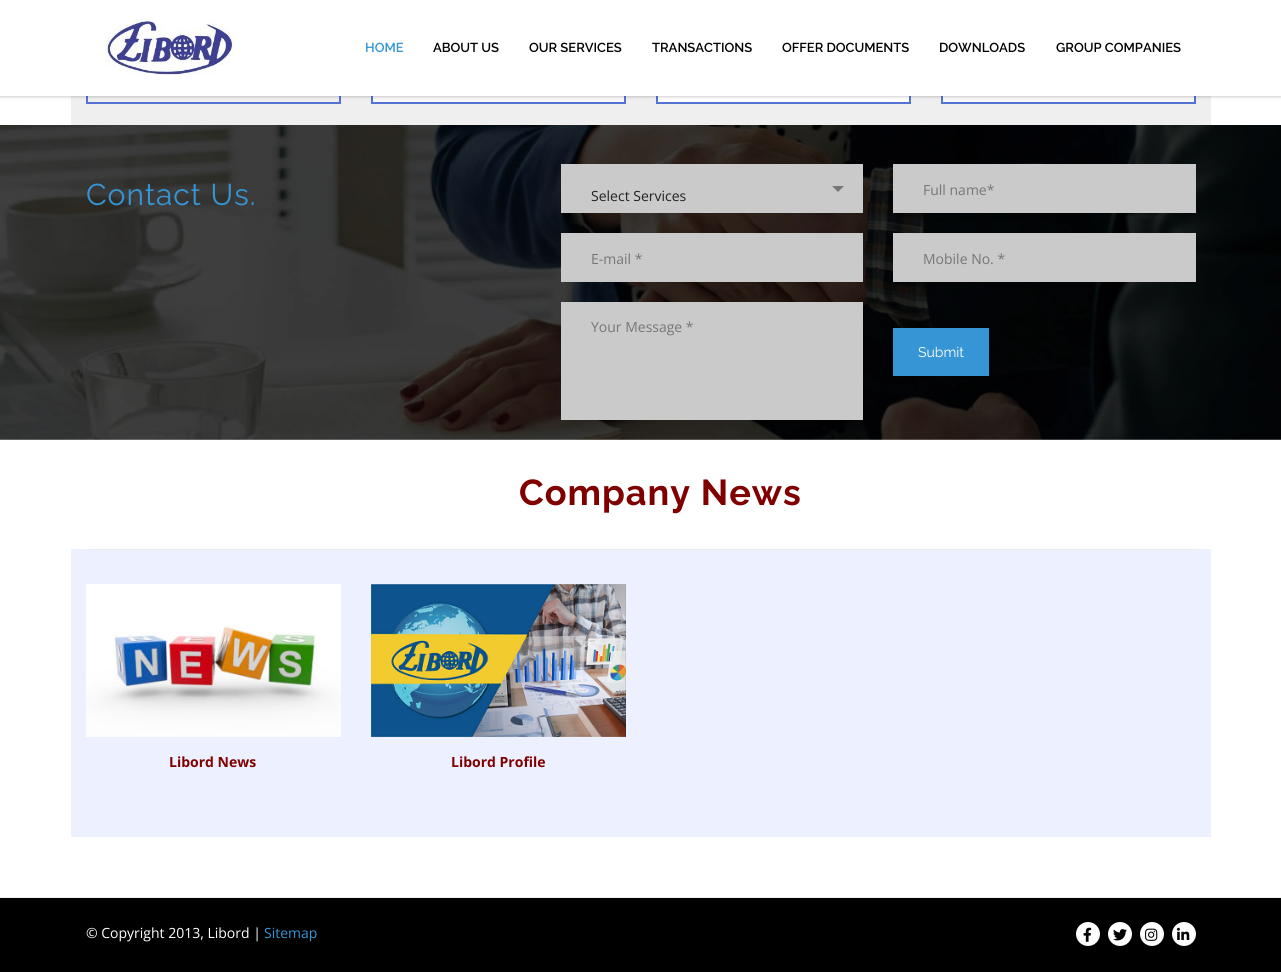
import math
import cairo



def draw_spaced(context, x, y, s, letter, word):
    context.move_to(x, y)
    for ch in s:
        context.show_text(ch)
        context.rel_move_to(letter + word * (ch == ' '), 0)


def rounded_rect(context, x, y, w, h, r):
    context.new_sub_path()
    for i, (u, v) in enumerate([(x + w - r, y + h - r), (x + r, y + h - r), (x + r, y + r), (x + w - r, y + r)]):
        context.arc(u, v, r, i * math.pi / 2, (i + 1) * math.pi / 2)
    context.close_path()


def draw_shadow(context, x, y, w, h, r, blur, alpha):
    context.push_group_with_content(cairo.Content.ALPHA)
    context.set_operator(cairo.Operator.SOURCE)
    for i in range(15, -16, -2):
        e = blur * i / 6
        if min(w, h) + 2 * e > 0:
            context.set_source_rgba(0, 0, 0, alpha * math.erfc((i - 1) / 8.5) / 2)
            rounded_rect(context, x - e, y - e, w + 2 * e, h + 2 * e, max(0, min(r + e + blur * .6, min(w, h) / 2 + e)))
            context.fill()
    context.mask(context.pop_group())


def draw_image(context, path, x, y, w, h):
    context.save()
    context.set_source_surface(cairo.ImageSurface.create_from_png(path), x, y)
    context.rectangle(x, y, w, h)
    context.fill()
    context.restore()


def draw(context):
    context.set_source_rgb(1, 1, 1)
    context.paint()
    context.set_source_rgb(239 / 255, 239 / 255, 239 / 255)
    context.rectangle(71, 96, 1140, 29)
    context.fill()
    context.rectangle(87, 71, 253, 32)
    context.set_source_rgb(84 / 255, 114 / 255, 210 / 255)
    context.stroke()
    context.set_source_rgb(249 / 255, 249 / 255, 249 / 255)
    context.rectangle(373, 96, 251, 6)
    context.fill()
    context.rectangle(372, 71, 253, 32)
    context.set_source_rgb(84 / 255, 114 / 255, 210 / 255)
    context.stroke()
    context.set_source_rgb(1, 1, 1)
    context.rectangle(658, 96, 251, 6)
    context.fill()
    context.rectangle(657, 71, 253, 32)
    context.set_source_rgb(84 / 255, 114 / 255, 210 / 255)
    context.stroke()
    context.set_source_rgb(249 / 255, 249 / 255, 249 / 255)
    context.rectangle(943, 96, 251, 6)
    context.fill()
    context.rectangle(942, 71, 253, 32)
    context.set_source_rgb(84 / 255, 114 / 255, 210 / 255)
    context.stroke()
    context.set_source_rgb(0, 0, 0)
    draw_shadow(context, 0, 1, 1281, 96, 0, 1.5, 0.2)
    context.set_source_rgb(1, 1, 1)
    context.rectangle(0, 0, 1281, 96)
    context.fill()
    draw_image(context, "images/1.png", 105, 19, 131, 57)
    draw_image(context, "images/2.png", 0, 125, 1281, 315)
    context.set_source_rgb(202 / 255, 202 / 255, 202 / 255)
    context.rectangle(561, 164, 302, 49)
    context.fill()
    context.set_source_rgb(119 / 255, 119 / 255, 119 / 255)
    context.new_path()
    context.move_to(832, 186)
    context.line_to(844, 186)
    context.line_to(838, 192)
    context.close_path()
    context.fill()
    context.set_source_rgb(202 / 255, 202 / 255, 202 / 255)
    context.rectangle(893, 164, 303, 49)
    context.fill()
    context.rectangle(561, 233, 302, 49)
    context.fill()
    context.rectangle(561, 302, 302, 118)
    context.fill()
    context.rectangle(893, 233, 303, 49)
    context.fill()
    context.set_source_rgb(53 / 255, 149 / 255, 213 / 255)
    context.rectangle(893, 328, 96, 48)
    context.fill()
    context.set_source_rgb(237 / 255, 240 / 255, 1)
    context.rectangle(71, 549, 1140, 288)
    context.fill()
    context.set_source_rgb(235 / 255, 235 / 255, 235 / 255)
    context.rectangle(86, 549, 1110, 1)
    context.fill()
    draw_image(context, "images/3.png", 86, 584, 255, 153)
    draw_image(context, "images/4.png", 371, 584, 255, 153)
    context.set_source_rgb(238 / 255, 238 / 255, 238 / 255)
    context.rectangle(0, 897, 1281, 1)
    context.fill()
    context.set_source_rgb(0, 0, 0)
    context.rectangle(0, 898, 1281, 74)
    context.fill()
    context.set_source_rgb(1, 1, 1)
    context.arc(1088, 934, 12, 0, 2 * math.pi)
    context.fill()
    draw_image(context, "images/5.png", 1083, 927, 9, 15)
    context.arc(1120, 934, 12, 0, 2 * math.pi)
    context.fill()
    draw_image(context, "images/6.png", 1113, 929, 14, 12)
    context.arc(1152, 934, 12, 0, 2 * math.pi)
    context.fill()
    draw_image(context, "images/7.png", 1145, 928, 13, 13)
    context.arc(1184, 934, 12, 0, 2 * math.pi)
    context.fill()
    draw_image(context, "images/8.png", 1177, 927, 13, 13)
    context.select_font_face("Raleway SemiBold")
    context.set_font_size(13)
    context.set_source_rgb(53 / 255, 149 / 255, 213 / 255)
    context.move_to(365, 52)
    context.show_text("HOME")
    context.set_source_rgb(0, 0, 0)
    context.move_to(433, 52)
    context.show_text("ABOUT US")
    context.move_to(529, 52)
    context.show_text("OUR SERVICES")
    context.move_to(652, 52)
    context.show_text("TRANSACTIONS")
    context.move_to(782, 52)
    context.show_text("OFFER DOCUMENTS")
    context.move_to(939, 52)
    context.show_text("DOWNLOADS")
    context.move_to(1056, 52)
    context.show_text("GROUP COMPANIES")
    context.select_font_face("Raleway")
    context.set_font_size(30)
    context.set_source_rgb(53 / 255, 149 / 255, 213 / 255)
    draw_spaced(context, 86, 205, "Contact Us.", 1, 0)
    context.select_font_face("Open Sans")
    context.set_font_size(14)
    context.set_source_rgb(34 / 255, 34 / 255, 34 / 255)
    context.move_to(591, 201)
    context.show_text("Select Services")
    context.set_source_rgb(118 / 255, 118 / 255, 118 / 255)
    context.move_to(923, 195)
    context.show_text("Full name*")
    context.move_to(591, 264)
    context.show_text("E-mail *")
    context.move_to(591, 332)
    context.show_text("Your Message *")
    context.move_to(923, 264)
    context.show_text("Mobile No. *")
    context.select_font_face("Raleway")
    context.set_source_rgb(1, 1, 1)
    context.move_to(918, 357)
    context.show_text("Submit")
    context.select_font_face("Raleway", cairo.FontSlant.NORMAL, cairo.FontWeight.BOLD)
    context.set_font_size(36)
    context.set_source_rgb(128 / 255, 0, 0)
    draw_spaced(context, 519, 505, "Company News", 1, 0)
    context.select_font_face("Open Sans", cairo.FontSlant.NORMAL, cairo.FontWeight.BOLD)
    context.set_font_size(14)
    context.move_to(169, 767)
    context.show_text("Libord News")
    context.move_to(451, 767)
    context.show_text("Libord Profile")
    context.select_font_face("Open Sans")
    context.set_source_rgb(1, 1, 1)
    context.move_to(86, 938)
    context.show_text("© Copyright 2013, Libord |")
    context.set_source_rgb(53 / 255, 149 / 255, 213 / 255)
    context.move_to(264, 938)
    context.show_text("Sitemap")


surface = cairo.ImageSurface(cairo.Format.RGB24, 1281, 972)
context = cairo.Context(surface)
options = cairo.FontOptions()
options.set_hint_metrics(cairo.HintMetrics.OFF)
options.set_hint_style(cairo.HintStyle.NONE)
context.set_font_options(options)
context.set_miter_limit(4)
draw(context)
surface.write_to_png("out.png")
